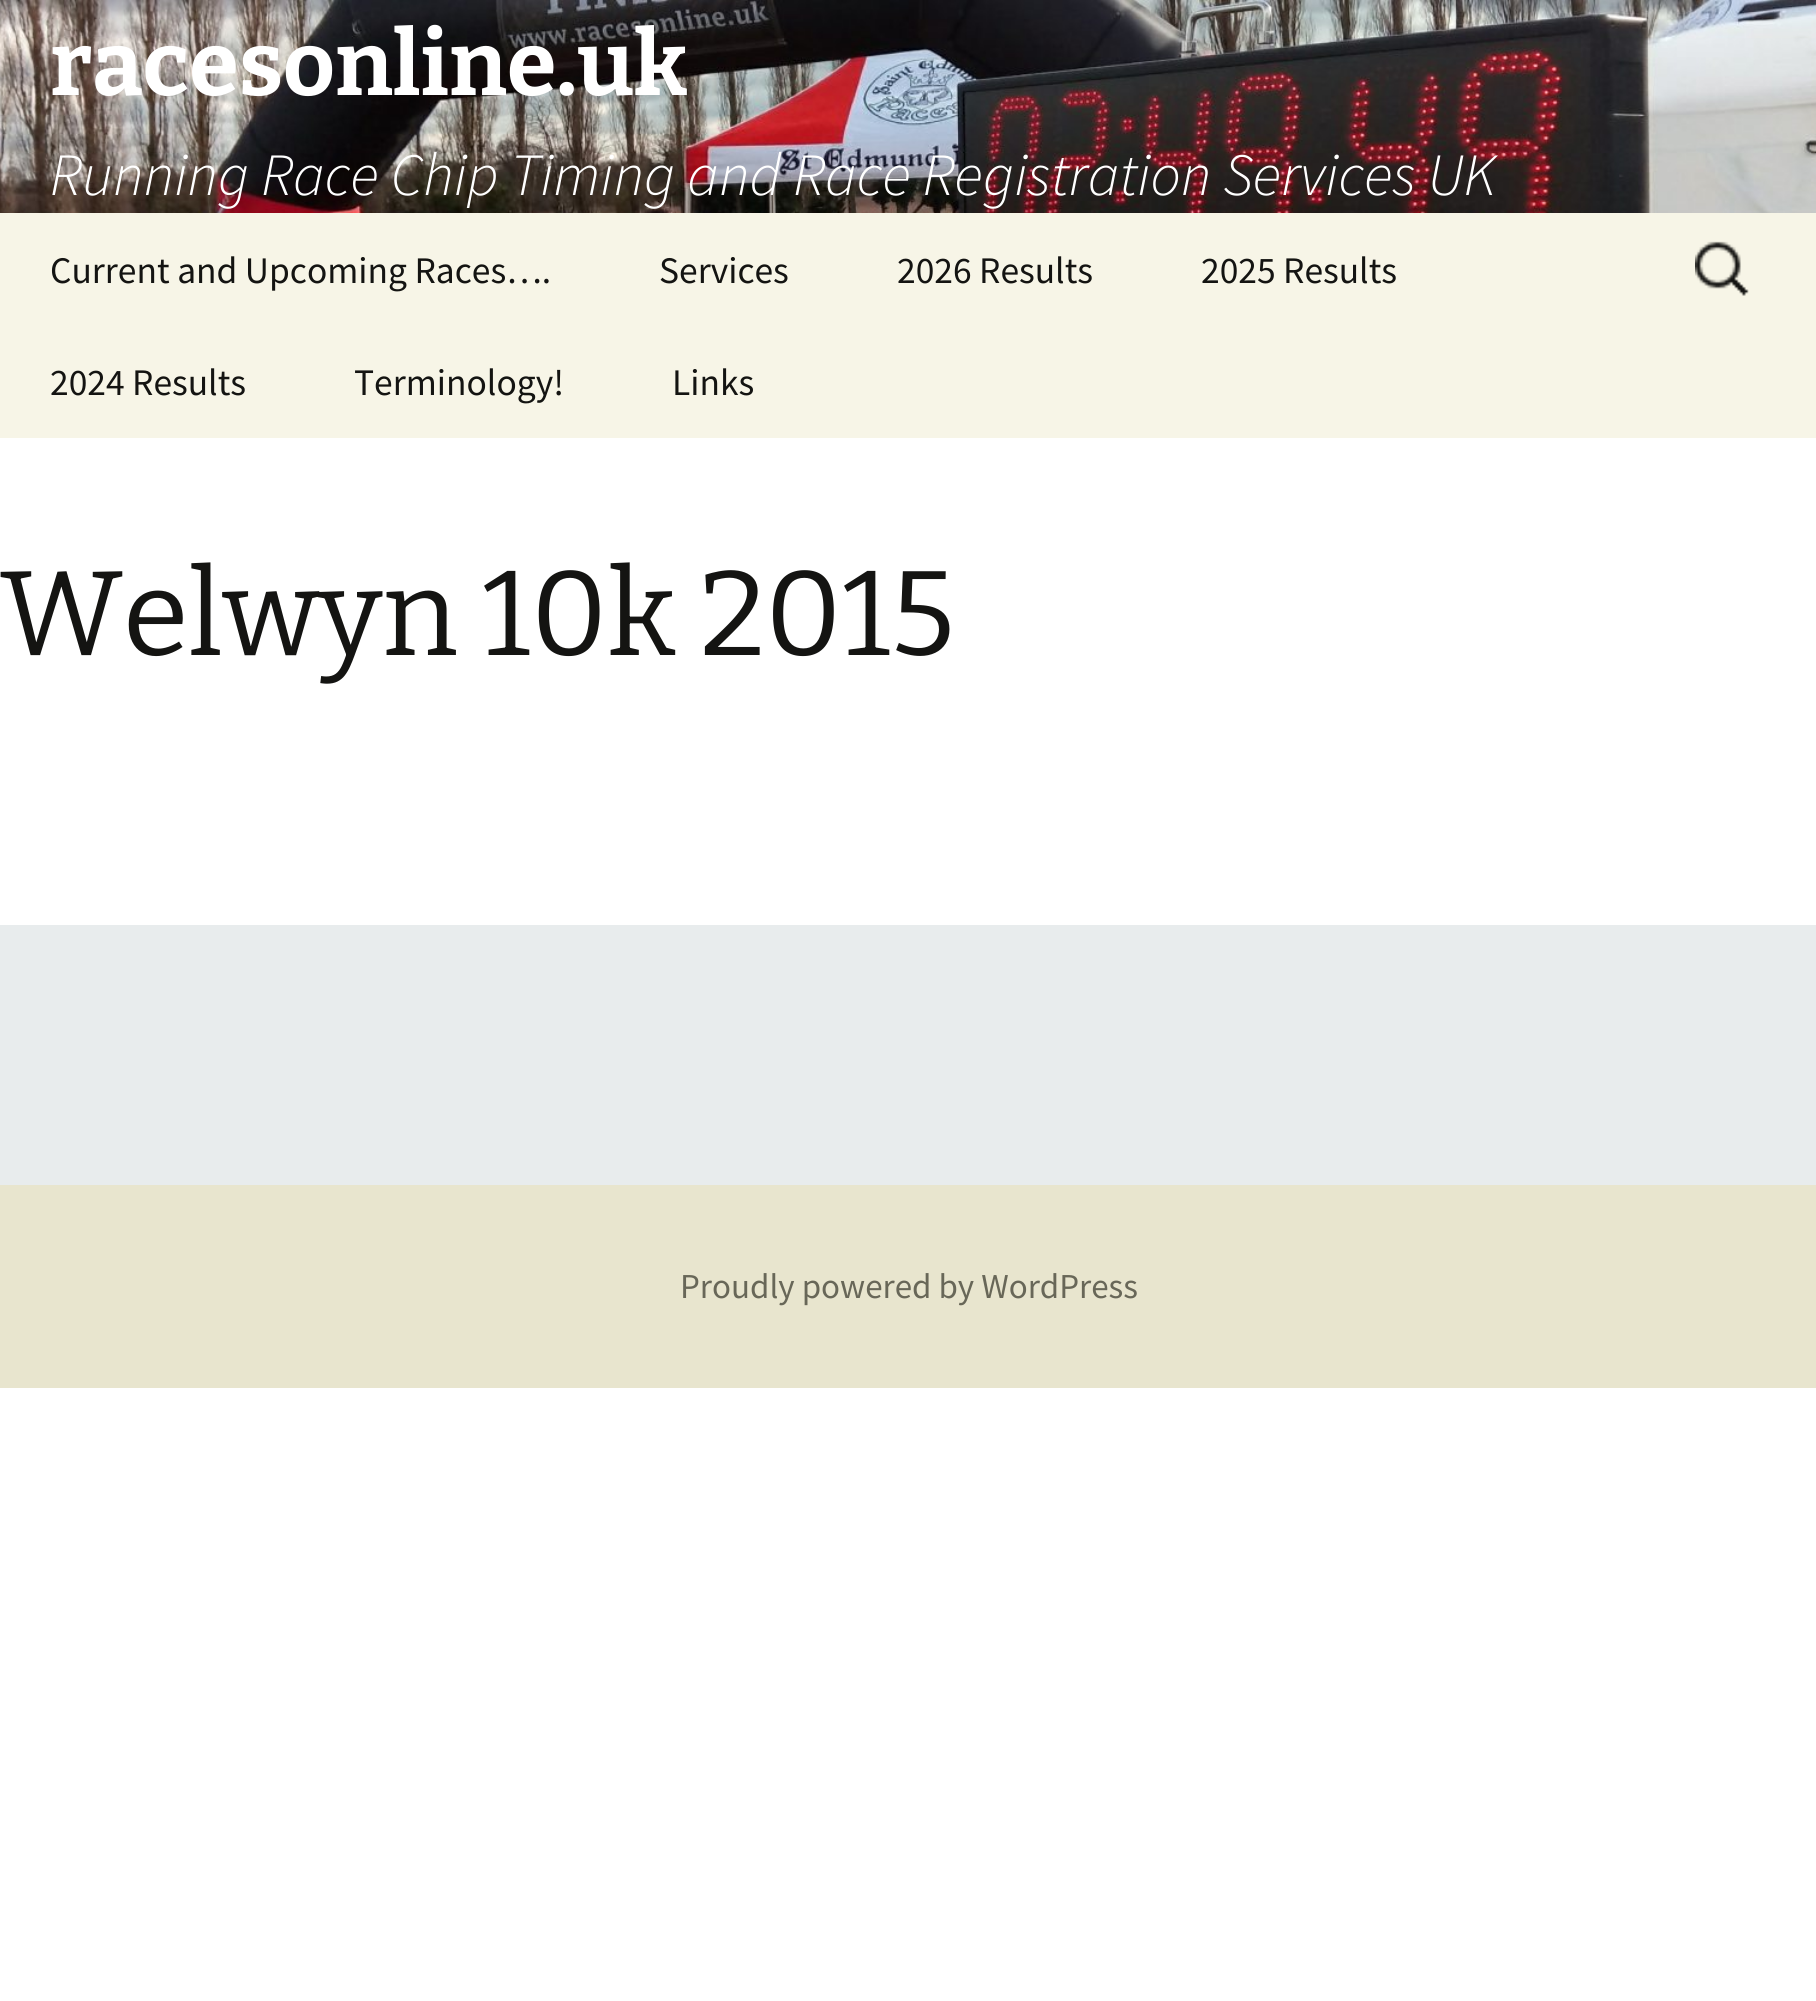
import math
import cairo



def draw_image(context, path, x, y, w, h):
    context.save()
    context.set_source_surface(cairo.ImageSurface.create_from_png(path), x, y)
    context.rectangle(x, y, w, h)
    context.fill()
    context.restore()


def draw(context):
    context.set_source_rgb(1, 1, 1)
    context.paint()
    draw_image(context, "images/1.png", 0, 0, 1816, 213)
    context.set_source_rgb(247 / 255, 245 / 255, 231 / 255)
    context.rectangle(0, 213, 1816, 225)
    context.fill()
    draw_image(context, "images/2.png", 1695, 241, 54, 55)
    context.set_source_rgb(232 / 255, 229 / 255, 206 / 255)
    context.rectangle(0, 1185, 1816, 203)
    context.fill()
    context.set_source_rgb(232 / 255, 236 / 255, 237 / 255)
    context.rectangle(0, 925, 1816, 260)
    context.fill()
    context.select_font_face("Bitter Thin")
    context.set_font_size(90)
    context.set_source_rgb(1, 1, 1)
    context.move_to(50, 95)
    context.show_text("racesonline.uk")
    context.select_font_face("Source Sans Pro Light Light", cairo.FontSlant.ITALIC)
    context.set_font_size(60)
    context.move_to(50, 195)
    context.show_text("Running Race Chip Timing and Race Registration Services UK")
    context.select_font_face("Source Sans Pro")
    context.set_font_size(37.5)
    context.set_source_rgb(20 / 255, 20 / 255, 18 / 255)
    context.move_to(50, 283)
    context.show_text("Current and Upcoming Races….")
    context.move_to(659, 283)
    context.show_text("Services")
    context.move_to(897, 283)
    context.show_text("2026 Results")
    context.move_to(1201, 283)
    context.show_text("2025 Results")
    context.move_to(50, 395)
    context.show_text("2024 Results")
    context.move_to(354, 395)
    context.show_text("Terminology!")
    context.move_to(672, 395)
    context.show_text("Links")
    context.select_font_face("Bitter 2 Thin")
    context.set_font_size(120)
    context.move_to(0, 655)
    context.show_text("Welwyn 10k 2015")
    context.select_font_face("Source Sans Pro")
    context.set_font_size(35)
    context.set_source_rgb(104 / 255, 103 / 255, 88 / 255)
    context.move_to(680, 1298)
    context.show_text("Proudly powered by WordPress")


surface = cairo.ImageSurface(cairo.Format.RGB24, 1816, 2001)
context = cairo.Context(surface)
options = cairo.FontOptions()
options.set_hint_metrics(cairo.HintMetrics.OFF)
options.set_hint_style(cairo.HintStyle.NONE)
context.set_font_options(options)
context.set_miter_limit(4)
draw(context)
surface.write_to_png("out.png")
